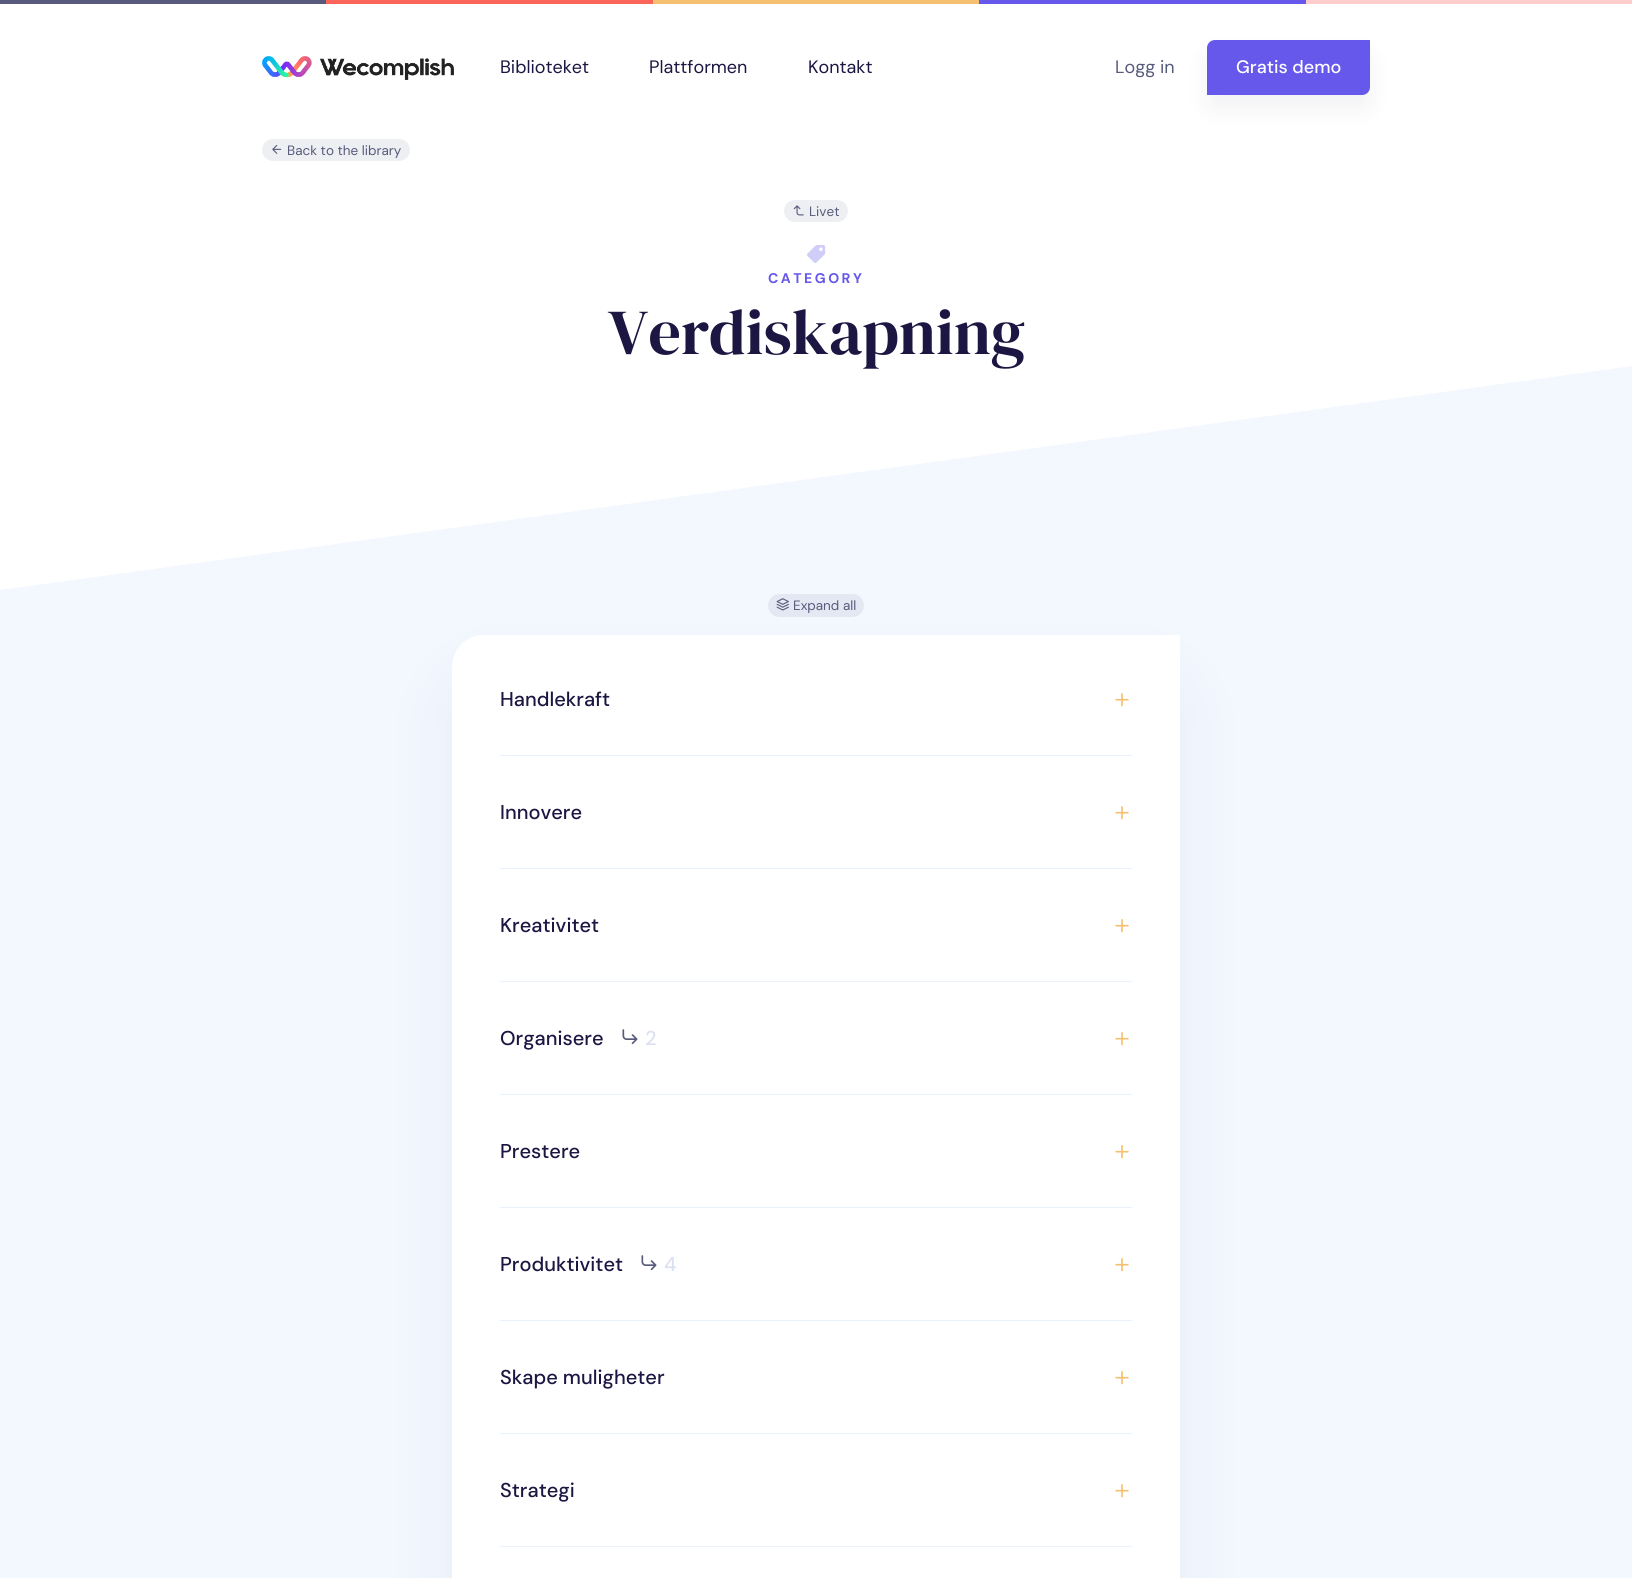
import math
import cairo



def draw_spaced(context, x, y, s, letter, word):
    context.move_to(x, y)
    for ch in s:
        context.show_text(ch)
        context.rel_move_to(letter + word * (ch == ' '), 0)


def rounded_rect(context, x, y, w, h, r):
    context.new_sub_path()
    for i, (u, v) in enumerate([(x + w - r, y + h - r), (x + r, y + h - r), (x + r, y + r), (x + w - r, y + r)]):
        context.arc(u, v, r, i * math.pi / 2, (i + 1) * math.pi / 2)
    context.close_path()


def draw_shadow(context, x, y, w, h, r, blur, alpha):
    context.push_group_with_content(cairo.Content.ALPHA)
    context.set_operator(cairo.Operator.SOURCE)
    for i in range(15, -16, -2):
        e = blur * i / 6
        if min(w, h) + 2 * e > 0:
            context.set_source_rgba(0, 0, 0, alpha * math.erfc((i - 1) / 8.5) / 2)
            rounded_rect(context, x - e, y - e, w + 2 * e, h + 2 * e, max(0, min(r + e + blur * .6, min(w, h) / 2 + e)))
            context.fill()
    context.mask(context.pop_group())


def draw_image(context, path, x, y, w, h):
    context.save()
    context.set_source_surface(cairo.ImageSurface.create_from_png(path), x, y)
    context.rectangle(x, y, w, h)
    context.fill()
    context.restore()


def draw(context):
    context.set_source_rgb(1, 1, 1)
    context.paint()
    draw_image(context, "images/1.png", 0, 0, 1632, 4)
    draw_image(context, "images/2.png", 262, 56, 192, 24)
    context.set_source_rgb(27 / 255, 22 / 255, 66 / 255)
    draw_shadow(context, 1207, 54, 163, 55, 8, 12, 0.06)
    context.set_source_rgb(102 / 255, 88 / 255, 234 / 255)
    context.new_path()
    context.move_to(1215, 40)
    context.line_to(1370, 40)
    context.line_to(1370, 87)
    context.curve_to(1370, 91.5, 1366.5, 95, 1362, 95)
    context.line_to(1207, 95)
    context.line_to(1207, 48)
    context.curve_to(1207, 43.5, 1210.5, 40, 1215, 40)
    context.close_path()
    context.fill()
    context.set_source_rgb(238 / 255, 239 / 255, 242 / 255)
    rounded_rect(context, 262, 139, 148, 22, 11)
    context.fill()
    draw_image(context, "images/3.png", 272, 144, 10, 10)
    rounded_rect(context, 784, 200, 64, 22, 11)
    context.fill()
    draw_image(context, "images/4.png", 793, 205, 11, 11)
    draw_image(context, "images/5.png", 807, 245, 19, 18)
    context.set_source_rgb(243 / 255, 248 / 255, 1)
    context.rectangle(0, 590, 1632, 988)
    context.fill()
    context.set_source_rgb(227 / 255, 232 / 255, 242 / 255)
    rounded_rect(context, 768, 594, 96, 23, 11.5)
    context.fill()
    draw_image(context, "images/6.png", 776, 598, 13, 13)
    context.select_font_face("DM Sans")
    context.set_font_size(18)
    context.set_source_rgb(27 / 255, 22 / 255, 66 / 255)
    context.move_to(500, 73)
    context.show_text("Biblioteket")
    context.move_to(649, 73)
    context.show_text("Plattformen")
    context.move_to(808, 73)
    context.show_text("Kontakt")
    context.set_source_rgb(87 / 255, 90 / 255, 123 / 255)
    context.move_to(1115, 73)
    context.show_text("Logg in")
    context.select_font_face("DM Sans Medium")
    context.set_source_rgb(1, 1, 1)
    context.move_to(1236, 73)
    context.show_text("Gratis demo")
    context.select_font_face("DM Sans")
    context.set_font_size(13.5)
    context.set_source_rgb(87 / 255, 90 / 255, 123 / 255)
    context.move_to(287, 155)
    context.show_text("Back to the library")
    context.move_to(809, 216)
    context.show_text("Livet")
    context.select_font_face("DM Sans", cairo.FontSlant.NORMAL, cairo.FontWeight.BOLD)
    context.set_font_size(14)
    context.set_source_rgb(102 / 255, 88 / 255, 234 / 255)
    draw_spaced(context, 768, 283, "CATEGORY", 2.5, 0)
    context.select_font_face("DM Serif Display")
    context.set_font_size(64)
    context.set_source_rgb(27 / 255, 22 / 255, 66 / 255)
    context.move_to(608, 354)
    context.show_text("Verdiskapning")
    context.save()
    context.rectangle(0, 366, 1632, 224)
    context.clip()
    context.set_source_rgb(243 / 255, 248 / 255, 1)
    context.new_path()
    context.move_to(-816, 590)
    context.line_to(0, 590)
    context.line_to(1632, 366)
    context.line_to(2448, 366)
    context.line_to(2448, 814)
    context.line_to(-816, 814)
    context.close_path()
    context.fill()
    context.restore()
    context.select_font_face("DM Sans")
    context.set_font_size(13.5)
    context.set_source_rgb(87 / 255, 90 / 255, 123 / 255)
    context.move_to(793, 610)
    context.show_text("Expand all")
    context.set_source_rgb(27 / 255, 22 / 255, 66 / 255)
    draw_shadow(context, 452, 679, 728, 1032, 32, 37, 0.06)
    context.set_source_rgb(1, 1, 1)
    context.new_path()
    context.move_to(484, 635)
    context.line_to(1180, 635)
    context.line_to(1180, 1578)
    context.curve_to(1180, 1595.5, 1165.5, 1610, 1148, 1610)
    context.line_to(452, 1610)
    context.line_to(452, 667)
    context.curve_to(452, 649.5, 466.5, 635, 484, 635)
    context.close_path()
    context.fill()
    context.select_font_face("DM Sans Medium")
    context.set_font_size(20)
    context.set_source_rgb(27 / 255, 22 / 255, 66 / 255)
    context.move_to(500, 706)
    context.show_text("Handlekraft")
    draw_image(context, "images/7.png", 1115, 693, 14, 14)
    context.set_source_rgb(234 / 255, 242 / 255, 254 / 255)
    context.rectangle(500, 755, 632, 1)
    context.fill()
    context.set_source_rgb(27 / 255, 22 / 255, 66 / 255)
    context.move_to(500, 819)
    context.show_text("Innovere")
    draw_image(context, "images/7.png", 1115, 806, 14, 14)
    context.set_source_rgb(234 / 255, 242 / 255, 254 / 255)
    context.rectangle(500, 868, 632, 1)
    context.fill()
    context.set_source_rgb(27 / 255, 22 / 255, 66 / 255)
    context.move_to(500, 932)
    context.show_text("Kreativitet")
    draw_image(context, "images/7.png", 1115, 919, 14, 14)
    context.set_source_rgb(234 / 255, 242 / 255, 254 / 255)
    context.rectangle(500, 981, 632, 1)
    context.fill()
    context.set_source_rgb(27 / 255, 22 / 255, 66 / 255)
    context.move_to(500, 1045)
    context.show_text("Organisere")
    draw_image(context, "images/8.png", 622, 1029, 16, 16)
    context.set_source_rgb(220 / 255, 224 / 255, 243 / 255)
    context.move_to(645, 1045)
    context.show_text("2")
    draw_image(context, "images/7.png", 1115, 1032, 14, 14)
    context.set_source_rgb(234 / 255, 242 / 255, 254 / 255)
    context.rectangle(500, 1094, 632, 1)
    context.fill()
    context.set_source_rgb(27 / 255, 22 / 255, 66 / 255)
    context.move_to(500, 1158)
    context.show_text("Prestere")
    draw_image(context, "images/7.png", 1115, 1145, 14, 14)
    context.set_source_rgb(234 / 255, 242 / 255, 254 / 255)
    context.rectangle(500, 1207, 632, 1)
    context.fill()
    context.set_source_rgb(27 / 255, 22 / 255, 66 / 255)
    context.move_to(500, 1271)
    context.show_text("Produktivitet")
    draw_image(context, "images/8.png", 641, 1255, 16, 16)
    context.set_source_rgb(220 / 255, 224 / 255, 243 / 255)
    context.move_to(664, 1271)
    context.show_text("4")
    draw_image(context, "images/7.png", 1115, 1258, 14, 14)
    context.set_source_rgb(234 / 255, 242 / 255, 254 / 255)
    context.rectangle(500, 1320, 632, 1)
    context.fill()
    context.set_source_rgb(27 / 255, 22 / 255, 66 / 255)
    context.move_to(500, 1384)
    context.show_text("Skape muligheter")
    draw_image(context, "images/7.png", 1115, 1371, 14, 14)
    context.set_source_rgb(234 / 255, 242 / 255, 254 / 255)
    context.rectangle(500, 1433, 632, 1)
    context.fill()
    context.set_source_rgb(27 / 255, 22 / 255, 66 / 255)
    context.move_to(500, 1497)
    context.show_text("Strategi")
    draw_image(context, "images/7.png", 1115, 1484, 14, 14)
    context.set_source_rgb(234 / 255, 242 / 255, 254 / 255)
    context.rectangle(500, 1546, 632, 1)
    context.fill()


surface = cairo.ImageSurface(cairo.Format.RGB24, 1632, 1578)
context = cairo.Context(surface)
options = cairo.FontOptions()
options.set_hint_metrics(cairo.HintMetrics.OFF)
options.set_hint_style(cairo.HintStyle.NONE)
context.set_font_options(options)
context.set_miter_limit(4)
draw(context)
surface.write_to_png("out.png")
